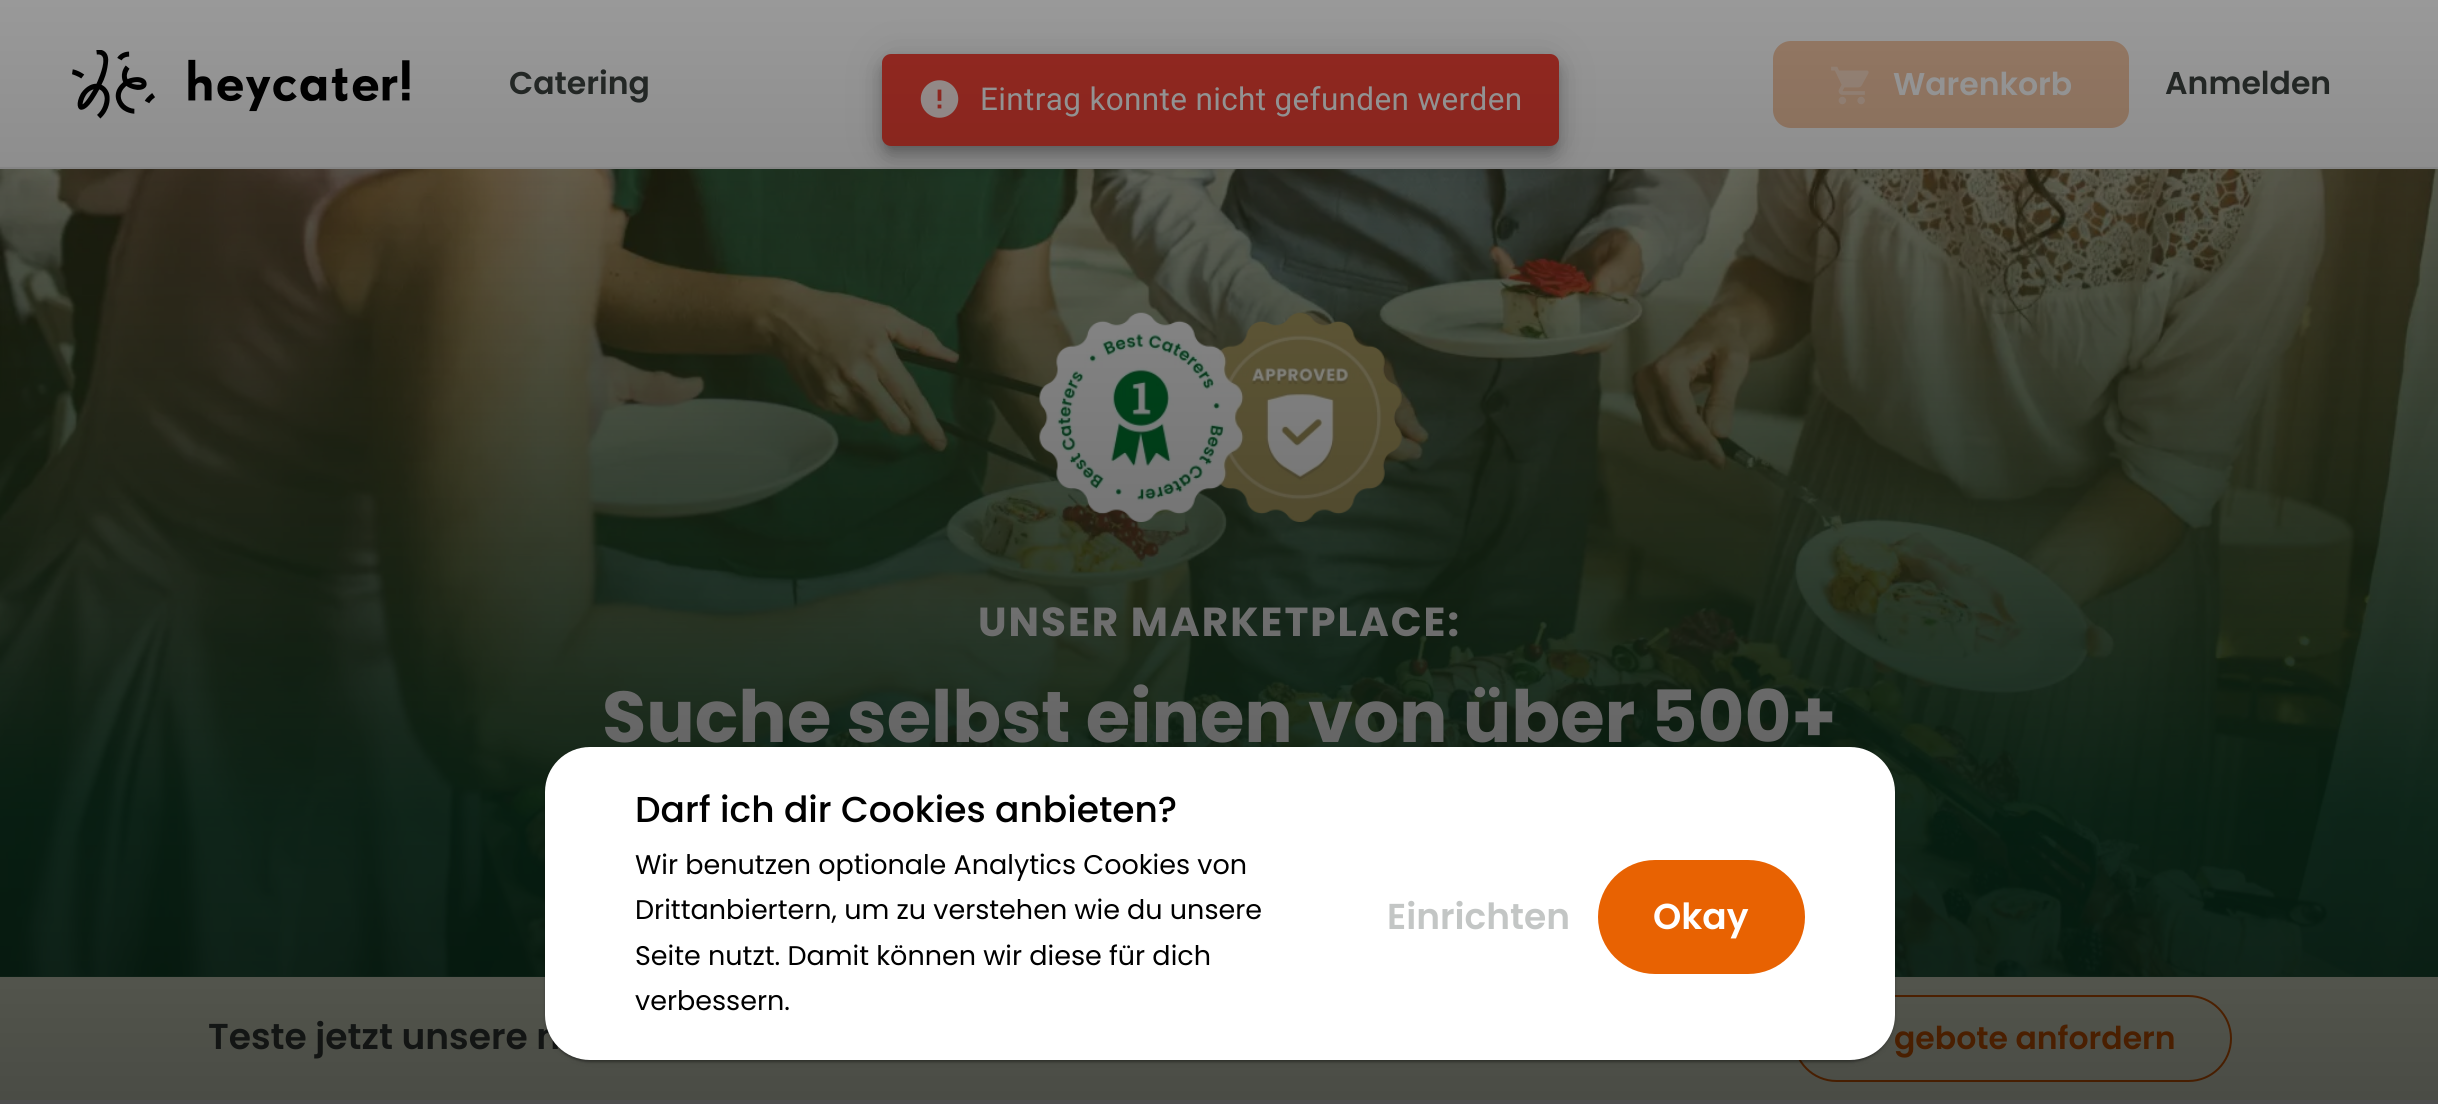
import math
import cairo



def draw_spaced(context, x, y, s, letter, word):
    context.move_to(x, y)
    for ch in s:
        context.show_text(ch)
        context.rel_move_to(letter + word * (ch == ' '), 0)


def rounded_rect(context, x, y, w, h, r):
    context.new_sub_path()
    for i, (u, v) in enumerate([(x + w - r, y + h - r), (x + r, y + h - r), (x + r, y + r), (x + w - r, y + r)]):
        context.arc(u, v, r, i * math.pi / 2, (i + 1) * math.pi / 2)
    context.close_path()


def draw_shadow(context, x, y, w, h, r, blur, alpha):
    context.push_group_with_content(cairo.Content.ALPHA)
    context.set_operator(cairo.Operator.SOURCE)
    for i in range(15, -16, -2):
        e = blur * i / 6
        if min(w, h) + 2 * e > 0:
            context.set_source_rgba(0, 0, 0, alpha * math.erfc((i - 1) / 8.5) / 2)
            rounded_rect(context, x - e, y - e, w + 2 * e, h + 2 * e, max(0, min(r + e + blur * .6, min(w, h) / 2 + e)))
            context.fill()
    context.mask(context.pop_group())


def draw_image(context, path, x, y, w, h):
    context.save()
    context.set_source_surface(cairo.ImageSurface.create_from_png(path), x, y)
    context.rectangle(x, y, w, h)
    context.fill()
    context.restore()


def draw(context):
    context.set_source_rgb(1, 1, 1)
    context.paint()
    context.set_source_rgb(238 / 255, 238 / 255, 238 / 255)
    context.rectangle(0, 167, 2438, 2)
    context.fill()
    draw_image(context, "images/1.png", 72, 50, 338, 69)
    context.set_source_rgb(247 / 255, 200 / 255, 166 / 255)
    rounded_rect(context, 1774, 42, 354, 85, 17)
    context.fill_preserve()
    context.stroke()
    draw_image(context, "images/2.png", 1831, 66, 38, 39)
    draw_image(context, "images/3.png", 0, 169, 2438, 808)
    gradient = cairo.LinearGradient(1220, 169, 1220, 977)
    gradient.add_color_stop_rgba(0, 103 / 255, 104 / 255, 43 / 255, 0.42)
    gradient.add_color_stop_rgba(0.8, 17 / 255, 85 / 255, 48 / 255, 0.87)
    context.set_source(gradient)
    context.rectangle(0, 169, 2438, 808)
    context.fill()
    draw_image(context, "images/4.png", 1039, 312, 363, 210)
    context.set_source_rgb(246 / 255, 251 / 255, 228 / 255)
    context.rectangle(0, 977, 2438, 123)
    context.fill()
    rounded_rect(context, 1794, 996, 437, 85, 42.5)
    context.set_source_rgb(232 / 255, 98 / 255, 2 / 255)
    context.stroke()
    context.set_source_rgb(0, 0, 0)
    draw_shadow(context, 882, 56, 677, 93, 9, 20, 0.12)
    draw_shadow(context, 882, 68, 677, 92, 9, 11, 0.14)
    draw_shadow(context, 884, 63, 673, 88, 7, 5.5, 0.2)
    context.set_source_rgb(244 / 255, 67 / 255, 54 / 255)
    rounded_rect(context, 882, 54, 677, 92, 9)
    context.fill()
    draw_image(context, "images/5.png", 920, 80, 39, 38)
    context.select_font_face("Poppins SemiBold")
    context.set_font_size(31.5)
    context.set_source_rgb(60 / 255, 67 / 255, 64 / 255)
    context.move_to(509, 94)
    context.show_text("Catering")
    context.set_source_rgb(1, 1, 1)
    context.move_to(1893, 95)
    context.show_text("Warenkorb")
    context.set_source_rgb(60 / 255, 67 / 255, 64 / 255)
    context.move_to(2165, 94)
    context.show_text("Anmelden")
    context.select_font_face("Poppins", cairo.FontSlant.NORMAL, cairo.FontWeight.BOLD)
    context.set_font_size(40.5)
    context.set_source_rgb(1, 1, 1)
    draw_spaced(context, 978, 636, "UNSER MARKETPLACE:", 2, 0)
    context.set_font_size(72)
    context.move_to(602, 742)
    context.show_text("Suche selbst einen von über 500+")
    context.select_font_face("Poppins SemiBold")
    context.set_font_size(36)
    context.set_source_rgb(60 / 255, 67 / 255, 64 / 255)
    context.move_to(208, 1049)
    context.show_text("Teste jetzt unsere n")
    context.set_font_size(31.5)
    context.set_source_rgb(232 / 255, 98 / 255, 2 / 255)
    context.move_to(1894, 1049)
    context.show_text("gebote anfordern")
    context.select_font_face("Roboto")
    context.set_source_rgb(1, 1, 1)
    draw_spaced(context, 980, 110, "Eintrag konnte nicht gefunden werden", 0.35, 0)
    gradient = cairo.LinearGradient(1220, 0, 1220, 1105)
    gradient.add_color_stop_rgba(0, 0, 0, 0, 0.4)
    gradient.add_color_stop_rgba(1, 0, 0, 0, 0.7)
    context.set_source(gradient)
    context.rectangle(0, 0, 2438, 1104)
    context.fill()
    context.set_source_rgb(0, 0, 0)
    draw_shadow(context, 545, 749, 1350, 313, 45, 3.5, 0.12)
    draw_shadow(context, 545, 749, 1350, 313, 45, 1, 0.14)
    draw_shadow(context, 547, 754, 1345, 308, 43, 1, 0.2)
    context.set_source_rgb(1, 1, 1)
    rounded_rect(context, 545, 747, 1350, 313, 45)
    context.fill()
    context.select_font_face("Poppins Medium")
    context.set_font_size(36)
    context.set_source_rgb(0, 0, 0)
    context.move_to(635, 822)
    context.show_text("Darf ich dir Cookies anbieten?")
    context.select_font_face("Poppins")
    context.set_font_size(27)
    context.move_to(635, 874)
    context.show_text("Wir benutzen optionale Analytics Cookies von")
    context.move_to(635, 919)
    context.show_text("Drittanbiertern, um zu verstehen wie du unsere")
    context.move_to(635, 965)
    context.show_text("Seite nutzt. Damit können wir diese für dich")
    context.move_to(635, 1010)
    context.show_text("verbessern.")
    context.select_font_face("Poppins SemiBold")
    context.set_font_size(36)
    context.set_source_rgb(195 / 255, 198 / 255, 197 / 255)
    context.move_to(1387, 929)
    context.show_text("Einrichten")
    context.set_source_rgb(232 / 255, 98 / 255, 2 / 255)
    rounded_rect(context, 1599, 861, 205, 112, 56)
    context.fill_preserve()
    context.stroke()
    context.set_source_rgb(1, 1, 1)
    context.move_to(1653, 929)
    context.show_text("Okay")


surface = cairo.ImageSurface(cairo.Format.RGB24, 2438, 1104)
context = cairo.Context(surface)
options = cairo.FontOptions()
options.set_hint_metrics(cairo.HintMetrics.OFF)
options.set_hint_style(cairo.HintStyle.NONE)
context.set_font_options(options)
context.set_miter_limit(4)
draw(context)
surface.write_to_png("out.png")
